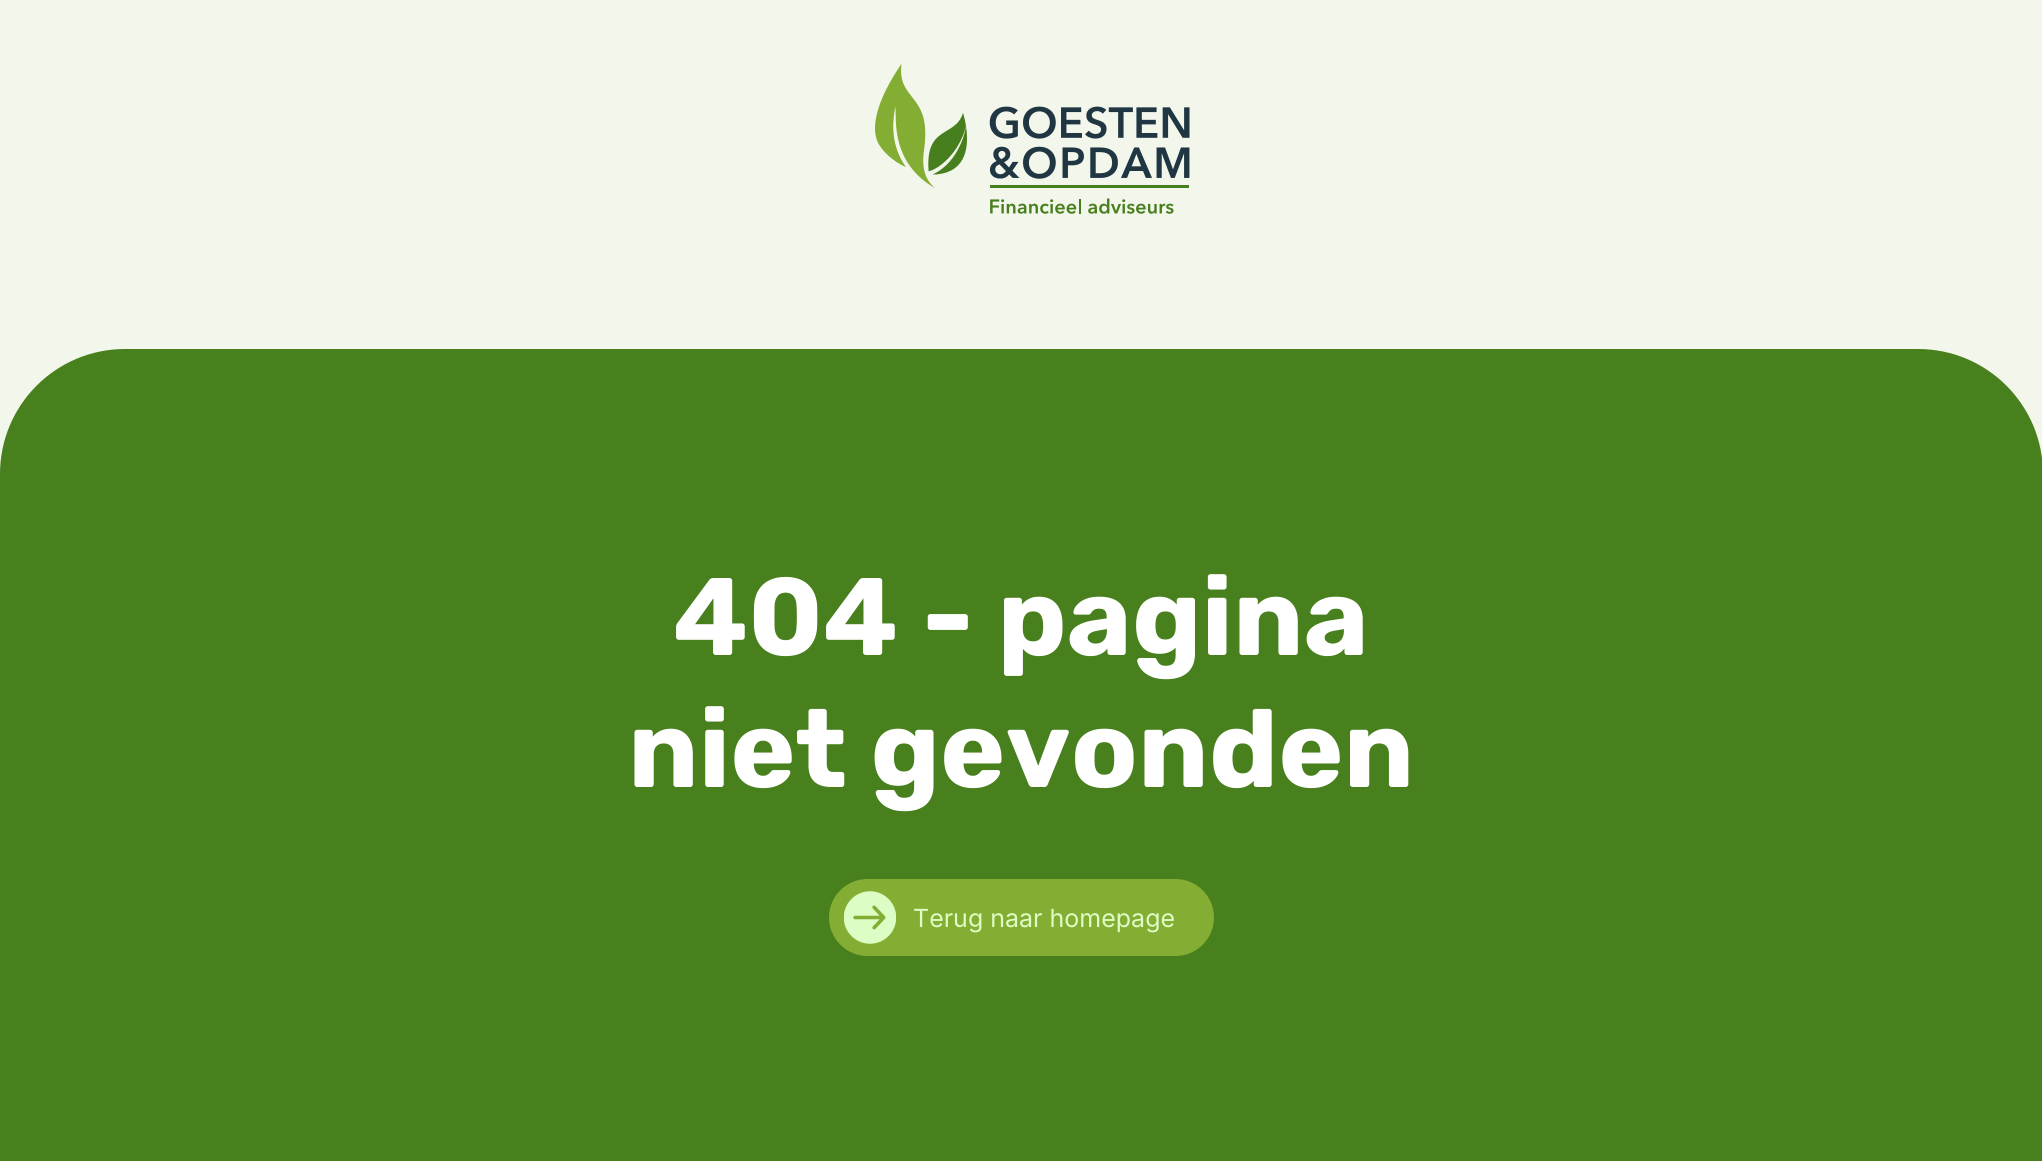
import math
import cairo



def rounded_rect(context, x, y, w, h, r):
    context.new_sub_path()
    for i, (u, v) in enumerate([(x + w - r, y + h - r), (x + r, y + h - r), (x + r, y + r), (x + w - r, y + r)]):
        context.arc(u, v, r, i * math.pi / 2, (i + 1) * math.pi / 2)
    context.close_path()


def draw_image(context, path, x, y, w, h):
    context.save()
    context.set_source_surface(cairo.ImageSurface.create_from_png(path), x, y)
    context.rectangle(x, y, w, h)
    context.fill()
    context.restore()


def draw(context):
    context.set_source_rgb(243 / 255, 247 / 255, 235 / 255)
    context.paint()
    draw_image(context, "images/1.png", 875, 64, 315, 150)
    context.set_source_rgb(71 / 255, 128 / 255, 29 / 255)
    context.new_path()
    context.move_to(125, 349)
    context.line_to(1918, 349)
    context.curve_to(1987, 349, 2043, 405, 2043, 474)
    context.line_to(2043, 1161)
    context.line_to(0, 1161)
    context.line_to(0, 474)
    context.curve_to(0, 405, 56, 349, 125, 349)
    context.close_path()
    context.fill()
    context.set_source_rgb(132 / 255, 173 / 255, 51 / 255)
    rounded_rect(context, 829, 879, 385, 77, 38.5)
    context.fill()
    draw_image(context, "images/2.png", 844, 891, 52, 53)
    context.select_font_face("Rubik", cairo.FontSlant.NORMAL, cairo.FontWeight.BOLD)
    context.set_font_size(110)
    context.set_source_rgb(1, 1, 1)
    context.move_to(673, 655)
    context.show_text("404 - pagina")
    context.move_to(628, 787)
    context.show_text("niet gevonden")
    context.select_font_face("Inter")
    context.set_font_size(25)
    context.set_source_rgb(220 / 255, 253 / 255, 195 / 255)
    context.move_to(913, 927)
    context.show_text("Terug naar homepage")


surface = cairo.ImageSurface(cairo.Format.RGB24, 2042, 1161)
context = cairo.Context(surface)
options = cairo.FontOptions()
options.set_hint_metrics(cairo.HintMetrics.OFF)
options.set_hint_style(cairo.HintStyle.NONE)
context.set_font_options(options)
context.set_miter_limit(4)
draw(context)
surface.write_to_png("out.png")
